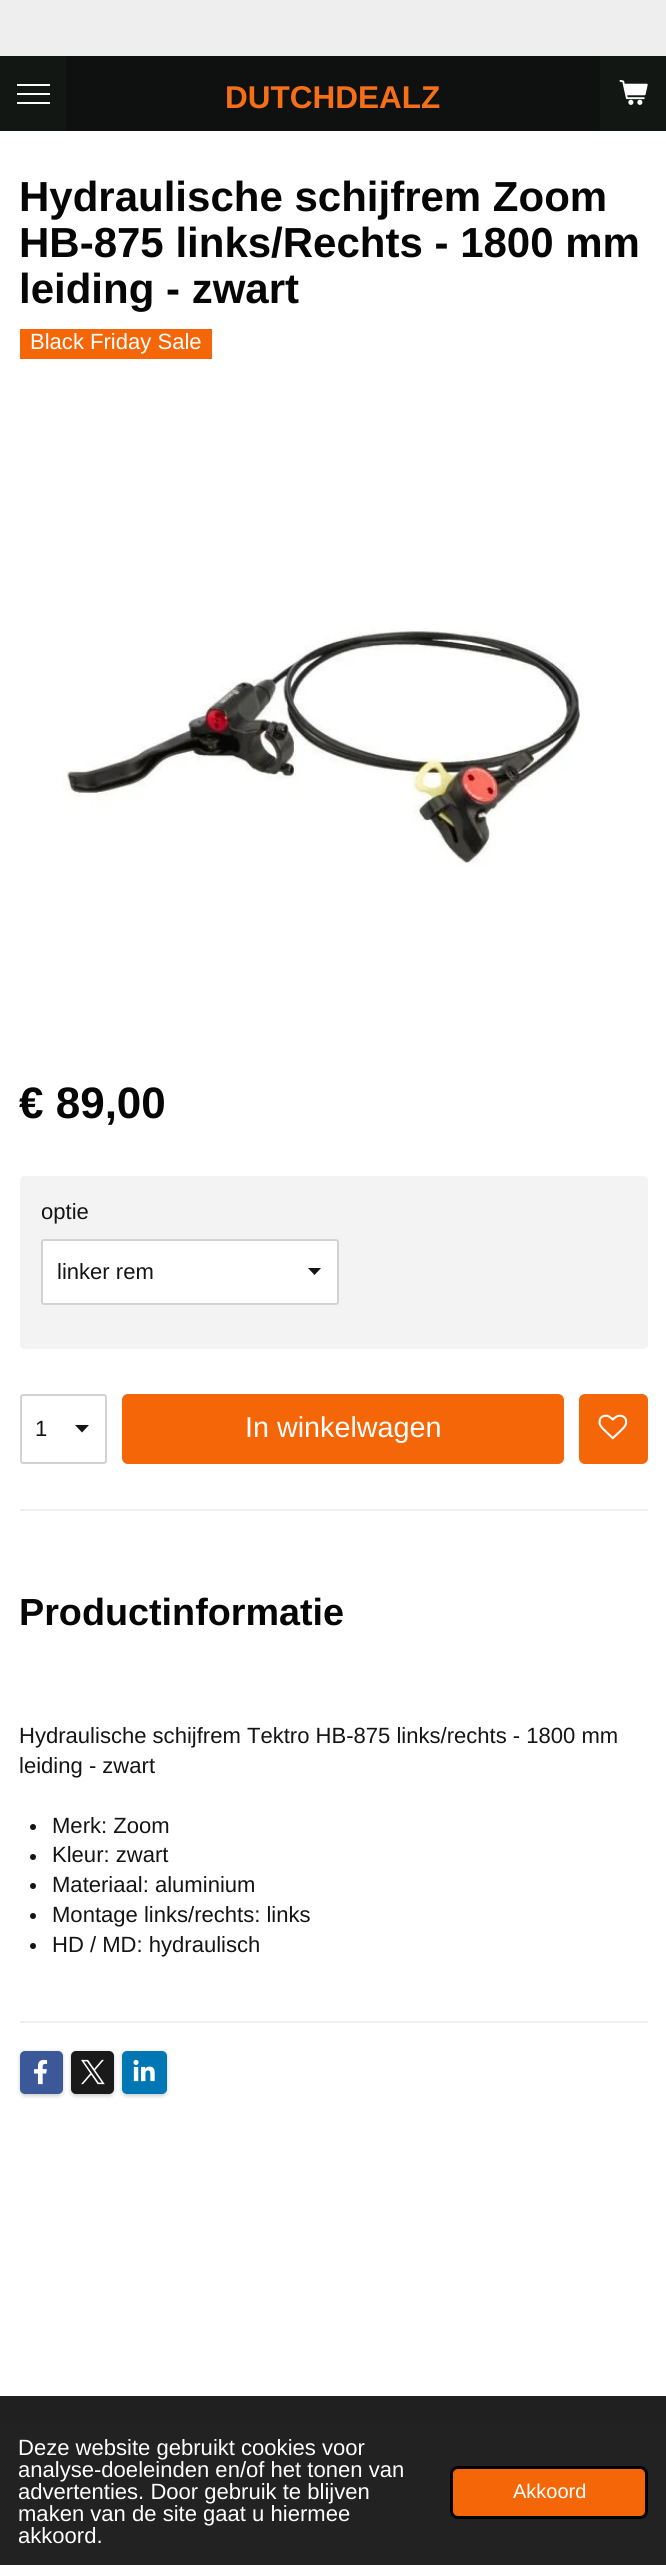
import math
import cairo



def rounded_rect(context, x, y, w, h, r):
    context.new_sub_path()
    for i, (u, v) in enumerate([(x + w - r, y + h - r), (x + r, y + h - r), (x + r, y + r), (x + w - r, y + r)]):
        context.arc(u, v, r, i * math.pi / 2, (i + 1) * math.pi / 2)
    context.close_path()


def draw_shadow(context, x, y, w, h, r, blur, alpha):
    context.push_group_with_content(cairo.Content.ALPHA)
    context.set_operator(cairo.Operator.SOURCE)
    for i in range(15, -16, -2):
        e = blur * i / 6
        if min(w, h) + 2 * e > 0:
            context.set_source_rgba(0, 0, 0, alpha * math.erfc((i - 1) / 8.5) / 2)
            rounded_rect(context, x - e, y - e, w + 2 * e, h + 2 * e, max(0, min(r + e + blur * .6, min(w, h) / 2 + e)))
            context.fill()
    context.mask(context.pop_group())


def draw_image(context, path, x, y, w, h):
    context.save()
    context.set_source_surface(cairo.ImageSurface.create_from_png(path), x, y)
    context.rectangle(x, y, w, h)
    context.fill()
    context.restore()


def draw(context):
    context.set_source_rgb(14 / 255, 17 / 255, 15 / 255)
    context.paint()
    context.set_source_rgb(238 / 255, 238 / 255, 238 / 255)
    context.rectangle(0, 0, 666, 56)
    context.fill()
    context.set_source_rgb(19 / 255, 23 / 255, 20 / 255)
    context.rectangle(0, 56, 66, 75)
    context.fill()
    context.set_source_rgb(1, 1, 1)
    context.rectangle(17, 93, 33, 2)
    context.fill()
    context.rectangle(17, 84, 33, 2)
    context.fill()
    context.rectangle(17, 102, 33, 2)
    context.fill()
    context.set_source_rgb(19 / 255, 23 / 255, 20 / 255)
    context.rectangle(600, 56, 66, 75)
    context.fill()
    draw_image(context, "images/1.png", 619, 79, 29, 26)
    context.set_source_rgb(1, 1, 1)
    context.rectangle(0, 131, 666, 2265)
    context.fill()
    context.set_source_rgb(244 / 255, 102 / 255, 7 / 255)
    context.rectangle(20, 329, 192, 30)
    context.fill()
    draw_image(context, "images/2.png", 62, 628, 521, 239)
    context.set_source_rgb(243 / 255, 243 / 255, 243 / 255)
    rounded_rect(context, 20, 1176, 628, 173, 5)
    context.fill()
    context.set_source_rgb(1, 1, 1)
    rounded_rect(context, 41, 1239, 298, 66, 3)
    context.fill()
    context.save()
    context.rectangle(308, 1268, 15, 7)
    context.clip()
    context.set_source_rgb(21 / 255, 20 / 255, 20 / 255)
    context.new_path()
    context.move_to(314.5, 1275)
    context.line_to(307.5, 1267.5)
    context.line_to(321.5, 1267.5)
    context.close_path()
    context.fill()
    context.restore()
    rounded_rect(context, 42, 1240, 296, 64, 2)
    context.set_source_rgba(166 / 255, 166 / 255, 166 / 255, 0.5)
    context.stroke()
    context.set_source_rgb(21 / 255, 20 / 255, 20 / 255)
    context.new_path()
    context.move_to(82, 1432.5)
    context.line_to(75, 1425)
    context.line_to(89, 1425)
    context.close_path()
    context.fill()
    rounded_rect(context, 21, 1395, 85, 68, 2)
    context.set_source_rgb(211 / 255, 211 / 255, 211 / 255)
    context.stroke()
    context.set_source_rgb(244 / 255, 102 / 255, 7 / 255)
    rounded_rect(context, 122, 1394, 442, 70, 6)
    context.fill()
    rounded_rect(context, 579, 1394, 69, 70, 6)
    context.fill()
    draw_image(context, "images/3.png", 598, 1414, 30, 26)
    context.set_source_rgb(239 / 255, 239 / 255, 239 / 255)
    context.rectangle(20, 1509, 628, 2)
    context.fill()
    context.set_source_rgb(21 / 255, 20 / 255, 20 / 255)
    context.arc(33, 1827, 3, 0, 2 * math.pi)
    context.fill()
    context.arc(33, 1857, 3, 0, 2 * math.pi)
    context.fill()
    context.arc(33, 1886, 3, 0, 2 * math.pi)
    context.fill()
    context.arc(33, 1916, 3, 0, 2 * math.pi)
    context.fill()
    context.arc(33, 1946, 3, 0, 2 * math.pi)
    context.fill()
    context.set_source_rgb(239 / 255, 239 / 255, 239 / 255)
    context.rectangle(20, 2021, 628, 2)
    context.fill()
    context.set_source_rgb(0, 0, 0)
    draw_shadow(context, 20, 2052, 43, 44, 5, 2, 0.2)
    context.set_source_rgb(59 / 255, 89 / 255, 152 / 255)
    rounded_rect(context, 20, 2051, 43, 43, 5)
    context.fill()
    draw_image(context, "images/4.png", 34, 2059, 14, 26)
    context.set_source_rgb(0, 0, 0)
    draw_shadow(context, 71, 2052, 43, 44, 5, 2, 0.2)
    context.set_source_rgb(26 / 255, 26 / 255, 26 / 255)
    rounded_rect(context, 71, 2051, 43, 43, 5)
    context.fill()
    draw_image(context, "images/5.png", 81, 2059, 24, 26)
    context.set_source_rgb(0, 0, 0)
    draw_shadow(context, 122, 2052, 45, 44, 5, 2, 0.2)
    context.set_source_rgb(0, 119 / 255, 181 / 255)
    rounded_rect(context, 122, 2051, 45, 43, 5)
    context.fill()
    draw_image(context, "images/6.png", 133, 2059, 22, 23)
    context.set_source_rgb(32 / 255, 32 / 255, 32 / 255)
    context.rectangle(0, 2396, 666, 24)
    context.fill()
    context.set_source_rgb(34 / 255, 34 / 255, 34 / 255)
    context.rectangle(0, 2420, 666, 145)
    context.fill()
    context.set_source_rgb(244 / 255, 102 / 255, 7 / 255)
    rounded_rect(context, 451.5, 2467.5, 195, 50, 6.5)
    context.fill_preserve()
    context.set_source_rgb(0, 0, 0)
    context.set_line_width(3)
    context.stroke()
    context.select_font_face("Liberation Sans", cairo.FontSlant.NORMAL, cairo.FontWeight.BOLD)
    context.set_font_size(31.5)
    context.set_source_rgb(244 / 255, 111 / 255, 23 / 255)
    context.move_to(225, 108)
    context.show_text("DUTCHDEALZ")
    context.set_font_size(42)
    context.set_source_rgb(6 / 255, 6 / 255, 6 / 255)
    context.move_to(19, 211)
    context.show_text("Hydraulische schijfrem Zoom")
    context.move_to(19, 257)
    context.show_text("HB-875 links/Rechts - 1800 mm")
    context.move_to(19, 303)
    context.show_text("leiding - zwart")
    context.select_font_face("Liberation Sans")
    context.set_font_size(22.05)
    context.set_source_rgb(1, 1, 1)
    context.move_to(30, 349)
    context.show_text("Black Friday Sale")
    context.select_font_face("Liberation Sans", cairo.FontSlant.NORMAL, cairo.FontWeight.BOLD)
    context.set_font_size(44)
    context.set_source_rgb(6 / 255, 6 / 255, 6 / 255)
    context.move_to(19, 1118)
    context.show_text("€ 89,00")
    context.select_font_face("Liberation Sans")
    context.set_font_size(22.05)
    context.set_source_rgb(21 / 255, 20 / 255, 20 / 255)
    context.move_to(41, 1219)
    context.show_text("optie")
    context.move_to(57, 1279)
    context.show_text("linker rem")
    context.move_to(35, 1436)
    context.show_text("1")
    context.set_font_size(28.75)
    context.set_source_rgb(1, 1, 1)
    context.move_to(245, 1437)
    context.show_text("In winkelwagen")
    context.select_font_face("Liberation Sans", cairo.FontSlant.NORMAL, cairo.FontWeight.BOLD)
    context.set_font_size(37.75)
    context.set_source_rgb(6 / 255, 6 / 255, 6 / 255)
    context.move_to(19, 1625)
    context.show_text("Productinformatie")
    context.select_font_face("Liberation Sans")
    context.set_font_size(22.05)
    context.set_source_rgb(21 / 255, 20 / 255, 20 / 255)
    context.move_to(19, 1743)
    context.show_text("Hydraulische schijfrem Tektro HB-875 links/rechts - 1800 mm")
    context.move_to(19, 1773)
    context.show_text("leiding - zwart")
    context.move_to(52, 1833)
    context.show_text("Merk: Zoom")
    context.move_to(52, 1862)
    context.show_text("Kleur: zwart")
    context.move_to(52, 1892)
    context.show_text("Materiaal: aluminium")
    context.move_to(52, 1922)
    context.show_text("Montage links/rechts: links")
    context.move_to(52, 1952)
    context.show_text("HD / MD: hydraulisch")
    context.set_source_rgb(1, 1, 1)
    context.move_to(18, 2455)
    context.show_text("Deze website gebruikt cookies voor")
    context.move_to(18, 2477)
    context.show_text("analyse-doeleinden en/of het tonen van")
    context.move_to(18, 2499)
    context.show_text("advertenties. Door gebruik te blijven")
    context.move_to(18, 2521)
    context.show_text("maken van de site gaat u hiermee")
    context.move_to(18, 2543)
    context.show_text("akkoord.")
    context.set_font_size(20)
    context.move_to(513, 2498)
    context.show_text("Akkoord")


surface = cairo.ImageSurface(cairo.Format.RGB24, 666, 2565)
context = cairo.Context(surface)
options = cairo.FontOptions()
options.set_hint_metrics(cairo.HintMetrics.OFF)
options.set_hint_style(cairo.HintStyle.NONE)
context.set_font_options(options)
context.set_miter_limit(4)
draw(context)
surface.write_to_png("out.png")
